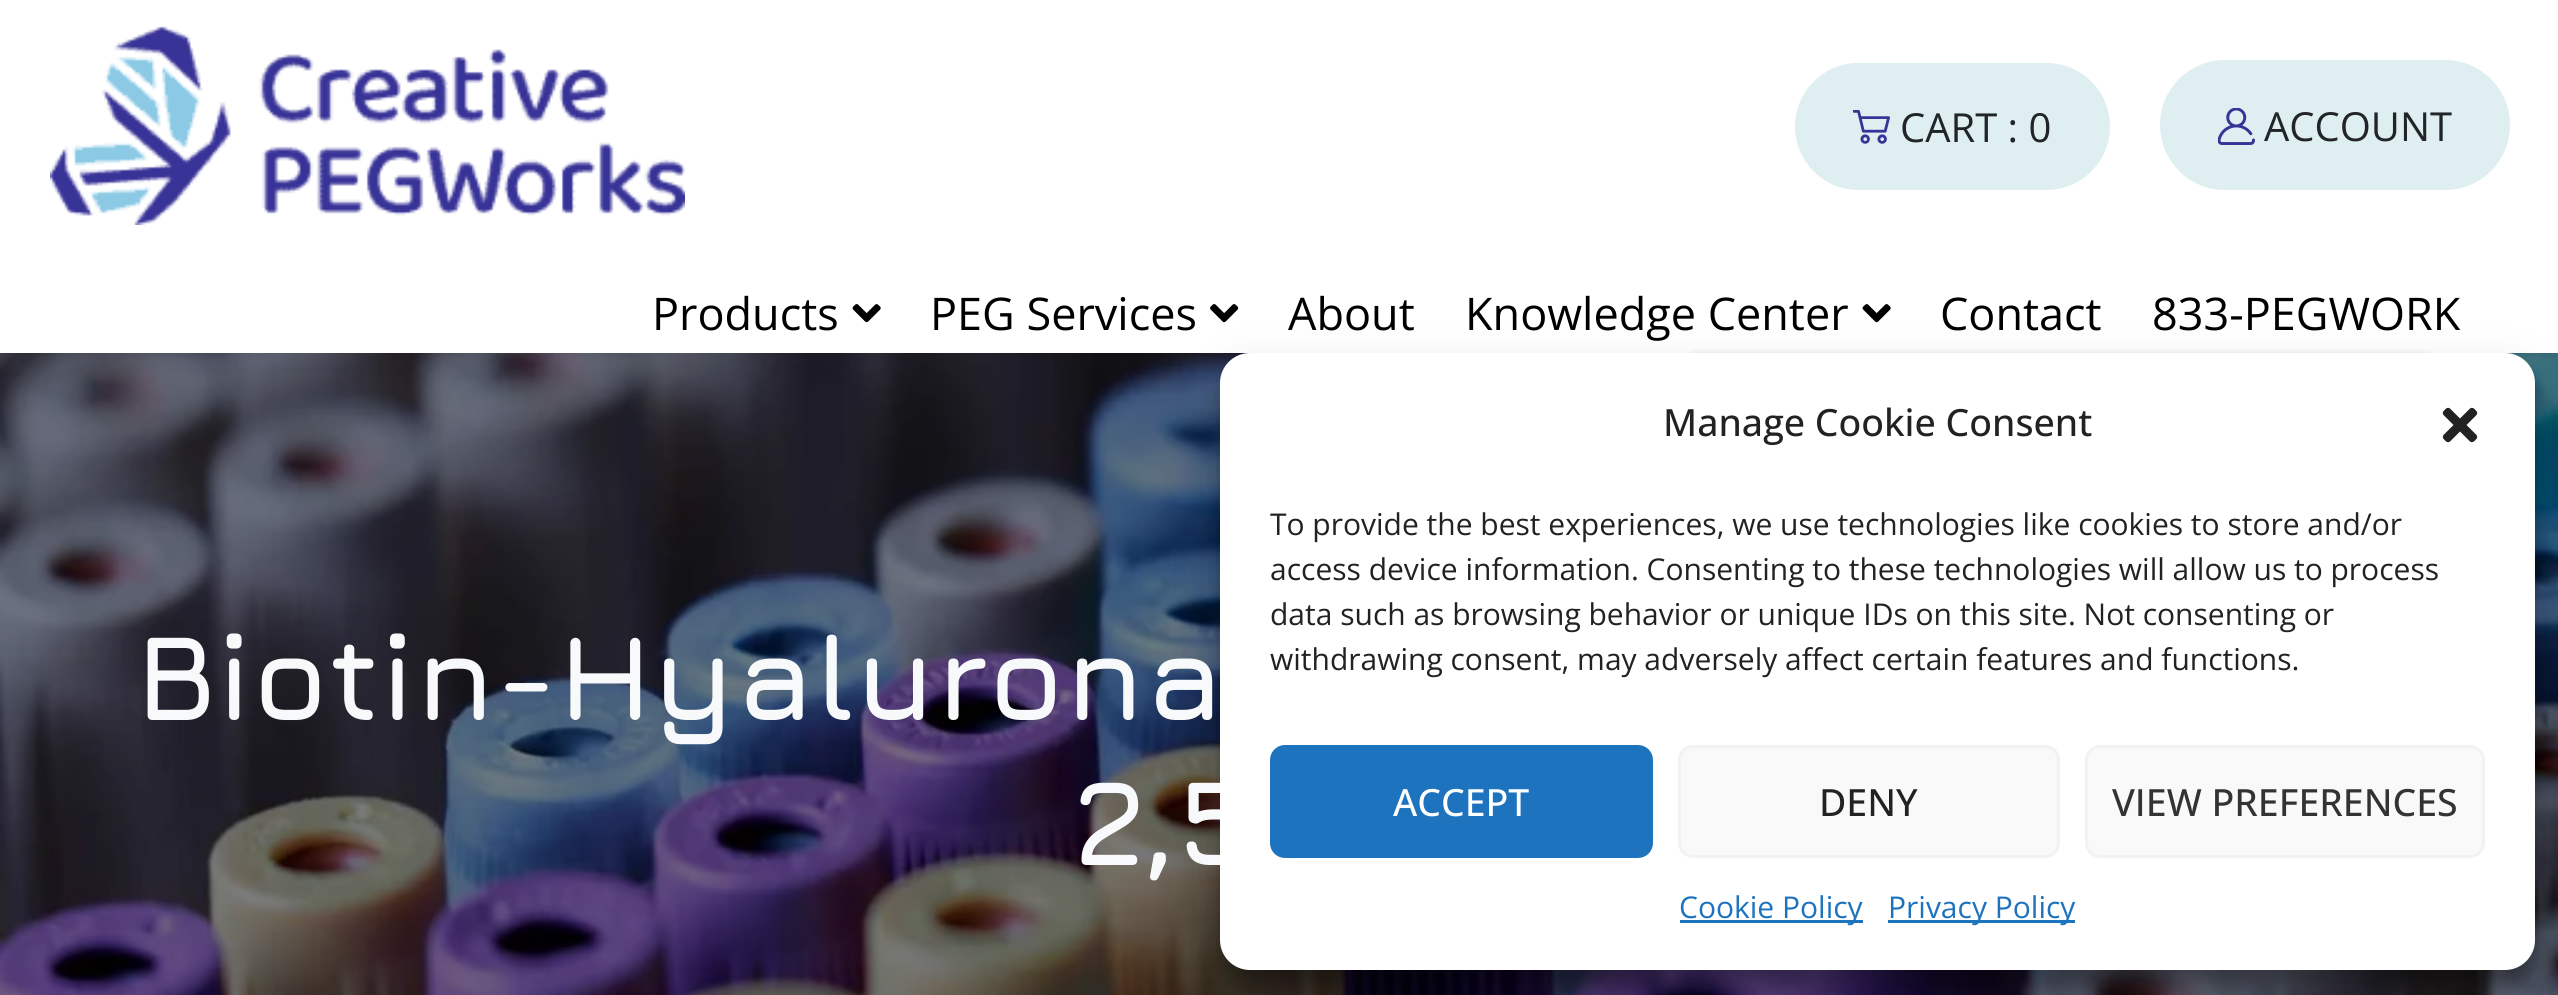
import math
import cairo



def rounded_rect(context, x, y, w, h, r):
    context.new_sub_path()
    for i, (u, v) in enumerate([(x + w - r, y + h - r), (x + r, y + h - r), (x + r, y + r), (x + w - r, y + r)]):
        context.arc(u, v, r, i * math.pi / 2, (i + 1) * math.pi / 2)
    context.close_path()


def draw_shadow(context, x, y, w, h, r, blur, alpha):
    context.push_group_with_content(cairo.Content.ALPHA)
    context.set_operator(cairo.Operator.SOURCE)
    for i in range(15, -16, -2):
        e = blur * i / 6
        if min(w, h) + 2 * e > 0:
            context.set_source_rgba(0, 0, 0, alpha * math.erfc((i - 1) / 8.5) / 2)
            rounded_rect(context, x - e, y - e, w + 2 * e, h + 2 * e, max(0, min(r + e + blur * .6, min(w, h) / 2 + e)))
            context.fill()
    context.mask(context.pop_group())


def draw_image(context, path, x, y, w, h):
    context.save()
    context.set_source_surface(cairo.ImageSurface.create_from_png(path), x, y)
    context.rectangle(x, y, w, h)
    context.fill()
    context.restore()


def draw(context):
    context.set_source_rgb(1, 1, 1)
    context.paint()
    draw_image(context, "images/6.png", 0, 353, 2558, 642)
    context.set_source_rgb(0, 0, 0)
    draw_shadow(context, 0, 3, 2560, 352, 0, 4, 0.1)
    context.set_source_rgb(1, 1, 1)
    context.rectangle(0, 0, 2558, 353)
    context.fill()
    draw_image(context, "images/1.png", 50, 26, 635, 199)
    context.set_source_rgb(223 / 255, 238 / 255, 240 / 255)
    rounded_rect(context, 1795, 63, 315, 127, 63.5)
    context.fill()
    draw_image(context, "images/2.png", 1853, 110, 37, 34)
    rounded_rect(context, 2160, 60, 350, 130, 65)
    context.fill()
    draw_image(context, "images/3.png", 2218, 108, 37, 37)
    context.set_source_rgb(0, 0, 0)
    draw_shadow(context, 1685, 355, 750, 100, 13, 4, 0.15)
    draw_image(context, "images/4.png", 852, 304, 29, 19)
    draw_image(context, "images/5.png", 1210, 304, 29, 19)
    draw_image(context, "images/4.png", 1862, 304, 29, 19)
    draw_shadow(context, 1220, 368, 1315, 617, 30, 7.5, 0.23)
    draw_shadow(context, 1220, 378, 1315, 617, 30, 25, 0.19)
    context.select_font_face("Open Sans")
    context.set_font_size(40)
    context.set_source_rgb(33 / 255, 37 / 255, 41 / 255)
    context.move_to(1900, 142)
    context.show_text("CART : 0")
    context.move_to(2264, 141)
    context.show_text("ACCOUNT")
    context.set_font_size(45)
    context.set_source_rgb(0, 0, 0)
    context.move_to(652, 330)
    context.show_text("Products")
    context.move_to(930, 330)
    context.show_text("PEG Services")
    context.move_to(1288, 330)
    context.show_text("About")
    context.move_to(1465, 330)
    context.show_text("Knowledge Center")
    context.move_to(1940, 330)
    context.show_text("Contact")
    context.move_to(2152, 330)
    context.show_text("833-PEGWORK")
    context.select_font_face("Jura", cairo.FontSlant.NORMAL, cairo.FontWeight.BOLD)
    context.set_font_size(121.25)
    context.set_source_rgb(248 / 255, 249 / 255, 250 / 255)
    context.move_to(135, 720)
    context.show_text("Biotin-Hyalurona")
    context.move_to(1075, 865)
    context.show_text("2,5")
    context.set_source_rgb(1, 1, 1)
    rounded_rect(context, 1220, 353, 1315, 617, 30)
    context.fill()
    context.select_font_face("Open Sans Medium")
    context.set_font_size(37.5)
    context.set_source_rgb(34 / 255, 34 / 255, 34 / 255)
    context.move_to(1663, 436)
    context.show_text("Manage Cookie Consent")
    draw_image(context, "images/7.png", 2442, 407, 36, 36)
    context.select_font_face("Open Sans")
    context.set_font_size(30)
    context.move_to(1270, 535)
    context.show_text("To provide the best experiences, we use technologies like cookies to store and/or")
    context.move_to(1270, 580)
    context.show_text("access device information. Consenting to these technologies will allow us to process")
    context.move_to(1270, 625)
    context.show_text("data such as browsing behavior or unique IDs on this site. Not consenting or")
    context.move_to(1270, 670)
    context.show_text("withdrawing consent, may adversely affect certain features and functions.")
    context.set_source_rgb(30 / 255, 115 / 255, 190 / 255)
    rounded_rect(context, 1271.5, 746.5, 380, 110, 13.5)
    context.fill_preserve()
    context.set_line_width(3)
    context.stroke()
    context.select_font_face("Open Sans Medium")
    context.set_font_size(37.5)
    context.set_source_rgb(1, 1, 1)
    context.move_to(1393, 816)
    context.show_text("ACCEPT")
    context.set_source_rgb(249 / 255, 249 / 255, 249 / 255)
    rounded_rect(context, 1679.5, 746.5, 379, 110, 13.5)
    context.fill_preserve()
    context.set_source_rgb(242 / 255, 242 / 255, 242 / 255)
    context.stroke()
    context.set_source_rgb(34 / 255, 34 / 255, 34 / 255)
    context.move_to(1819, 816)
    context.show_text("DENY")
    context.set_source_rgb(249 / 255, 249 / 255, 249 / 255)
    rounded_rect(context, 2086.5, 746.5, 397, 110, 13.5)
    context.fill_preserve()
    context.set_source_rgb(242 / 255, 242 / 255, 242 / 255)
    context.stroke()
    context.set_source_rgb(51 / 255, 51 / 255, 51 / 255)
    context.move_to(2112, 816)
    context.show_text("VIEW PREFERENCES")
    context.set_source_rgb(30 / 255, 115 / 255, 190 / 255)
    context.rectangle(1680, 920, 183, 3)
    context.fill()
    context.select_font_face("Open Sans")
    context.set_font_size(30)
    context.move_to(1679, 918)
    context.show_text("Cookie Policy")
    context.rectangle(1888, 920, 187, 3)
    context.fill()
    context.move_to(1888, 918)
    context.show_text("Privacy Policy")


surface = cairo.ImageSurface(cairo.Format.RGB24, 2558, 995)
context = cairo.Context(surface)
options = cairo.FontOptions()
options.set_hint_metrics(cairo.HintMetrics.OFF)
options.set_hint_style(cairo.HintStyle.NONE)
context.set_font_options(options)
context.set_miter_limit(4)
draw(context)
surface.write_to_png("out.png")
